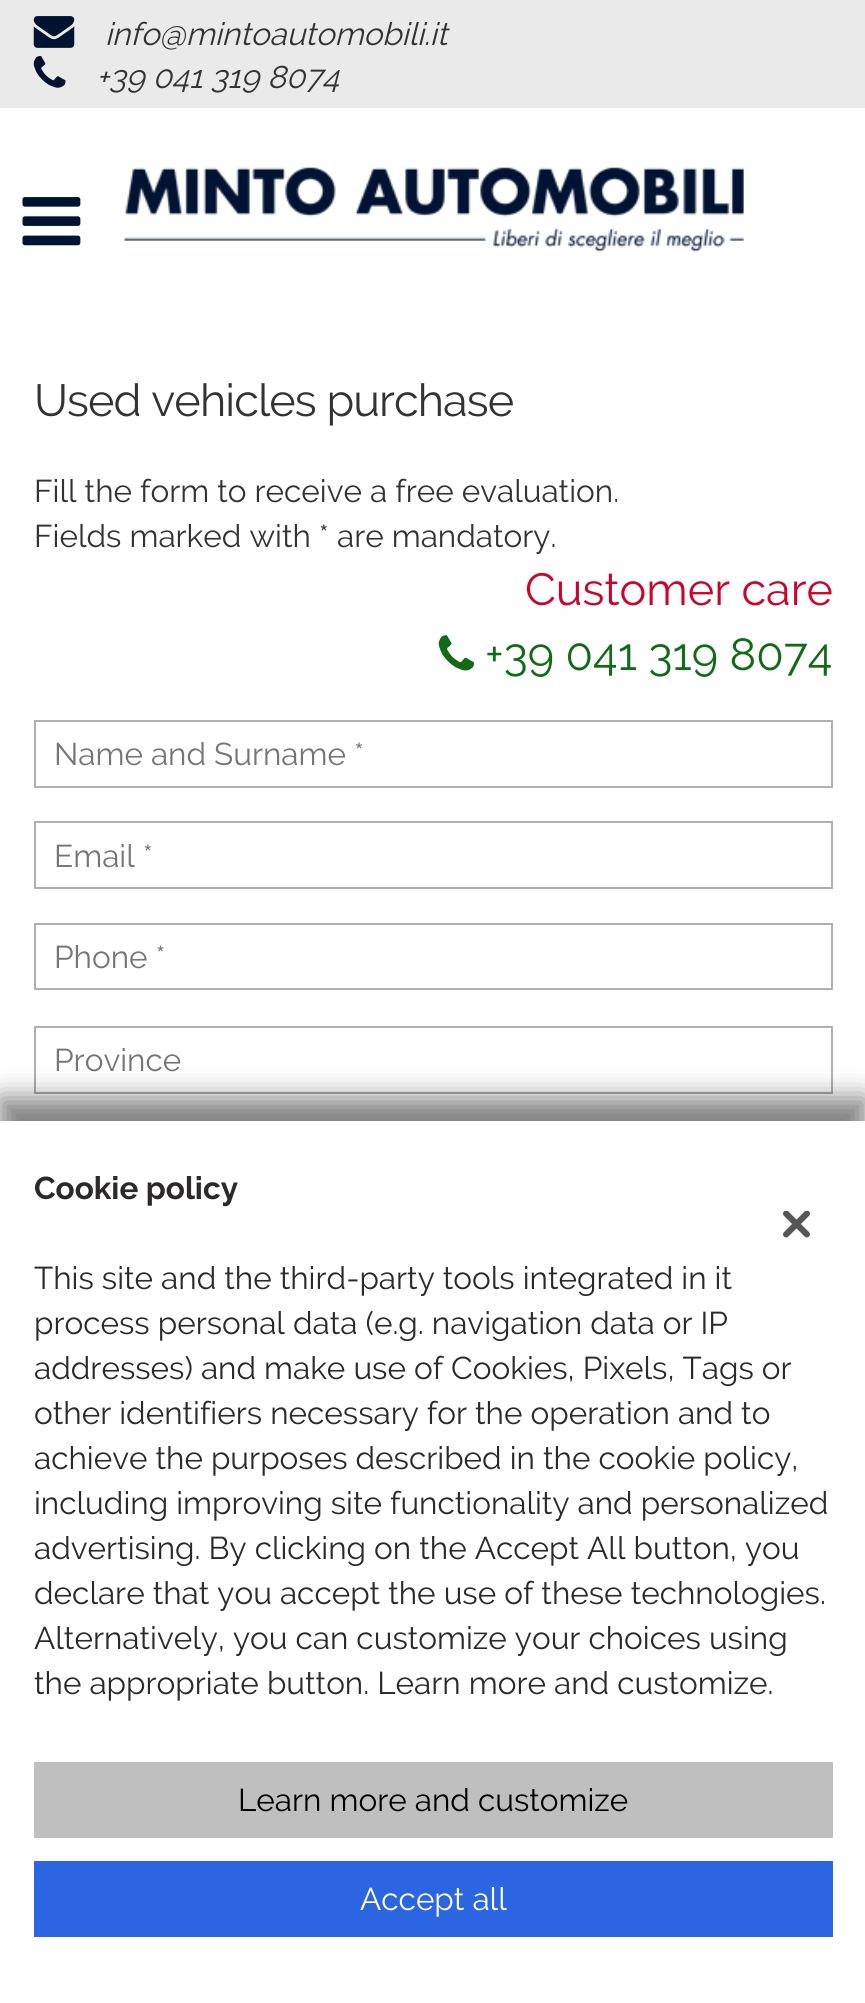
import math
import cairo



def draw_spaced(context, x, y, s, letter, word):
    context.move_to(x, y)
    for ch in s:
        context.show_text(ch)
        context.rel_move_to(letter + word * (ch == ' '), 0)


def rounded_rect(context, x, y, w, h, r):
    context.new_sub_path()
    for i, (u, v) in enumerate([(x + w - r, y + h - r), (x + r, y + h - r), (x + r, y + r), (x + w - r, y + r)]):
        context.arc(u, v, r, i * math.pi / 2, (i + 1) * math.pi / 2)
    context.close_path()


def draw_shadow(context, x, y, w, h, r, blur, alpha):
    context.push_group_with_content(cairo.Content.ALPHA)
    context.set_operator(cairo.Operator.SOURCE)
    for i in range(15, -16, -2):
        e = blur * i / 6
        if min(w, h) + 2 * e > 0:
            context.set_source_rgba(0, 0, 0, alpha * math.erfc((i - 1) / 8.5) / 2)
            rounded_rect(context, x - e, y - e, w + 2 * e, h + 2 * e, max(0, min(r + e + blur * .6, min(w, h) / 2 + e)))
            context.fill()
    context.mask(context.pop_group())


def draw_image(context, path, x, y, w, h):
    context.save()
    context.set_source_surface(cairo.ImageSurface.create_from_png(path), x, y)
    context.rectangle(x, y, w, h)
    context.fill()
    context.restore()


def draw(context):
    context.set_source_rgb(1, 1, 1)
    context.paint()
    context.set_source_rgb(234 / 255, 234 / 255, 234 / 255)
    context.rectangle(0, 0, 865, 108)
    context.fill()
    draw_image(context, "images/1.png", 33, 16, 42, 32)
    draw_image(context, "images/2.png", 33, 55, 33, 33)
    draw_image(context, "images/3.png", 22, 197, 59, 49)
    draw_image(context, "images/4.png", 124, 166, 620, 87)
    draw_image(context, "images/5.png", 438, 635, 37, 36)
    context.rectangle(35, 721, 797, 66)
    context.set_source_rgb(176 / 255, 176 / 255, 176 / 255)
    context.stroke()
    context.rectangle(35, 822, 797, 66)
    context.stroke()
    context.rectangle(35, 924, 797, 65)
    context.stroke()
    context.rectangle(35, 1027, 797, 66)
    context.stroke()
    context.set_source_rgb(0, 0, 0)
    draw_shadow(context, 0, 1098, 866, 884, 0, 13.5, 0.5)
    context.set_source_rgb(1, 1, 1)
    context.rectangle(0, 1121, 865, 882)
    context.fill()
    context.set_source_rgb(191 / 255, 191 / 255, 191 / 255)
    context.rectangle(34, 1762, 799, 76)
    context.fill()
    context.set_source_rgb(44 / 255, 101 / 255, 225 / 255)
    context.rectangle(34, 1861, 799, 76)
    context.fill()
    draw_image(context, "images/6.png", 783, 1211, 27, 27)
    context.select_font_face("Raleway", cairo.FontSlant.ITALIC)
    context.set_font_size(31.5)
    context.set_source_rgb(51 / 255, 51 / 255, 51 / 255)
    context.move_to(105, 45)
    context.show_text("info@mintoautomobili.it")
    context.move_to(96, 88)
    context.show_text("+39 041 319 8074")
    context.select_font_face("Raleway")
    context.set_font_size(45)
    draw_spaced(context, 34, 416, "Used vehicles purchase", -0.9, 0)
    context.set_font_size(31.5)
    context.move_to(34, 502)
    context.show_text("Fill the form to receive a free evaluation.")
    context.move_to(34, 547)
    context.show_text("Fields marked with * are mandatory.")
    context.set_font_size(45)
    context.set_source_rgb(204 / 255, 4 / 255, 42 / 255)
    context.move_to(525, 605)
    context.show_text("Customer care")
    context.set_source_rgb(17 / 255, 107 / 255, 22 / 255)
    context.move_to(485, 670)
    context.show_text("+39 041 319 8074")
    context.set_font_size(31.5)
    context.set_source_rgb(117 / 255, 117 / 255, 117 / 255)
    context.move_to(54, 765)
    context.show_text("Name and Surname *")
    context.move_to(54, 867)
    context.show_text("Email *")
    context.move_to(54, 968)
    context.show_text("Phone *")
    context.move_to(54, 1071)
    context.show_text("Province")
    context.select_font_face("Raleway", cairo.FontSlant.NORMAL, cairo.FontWeight.BOLD)
    context.set_source_rgb(43 / 255, 41 / 255, 41 / 255)
    context.move_to(34, 1199)
    context.show_text("Cookie policy")
    context.select_font_face("Raleway")
    context.move_to(34, 1289)
    context.show_text("This site and the third-party tools integrated in it")
    context.move_to(34, 1334)
    context.show_text("process personal data (e.g. navigation data or IP")
    context.move_to(34, 1379)
    context.show_text("addresses) and make use of Cookies, Pixels, Tags or")
    context.move_to(34, 1424)
    context.show_text("other identifiers necessary for the operation and to")
    context.move_to(34, 1469)
    context.show_text("achieve the purposes described in the cookie policy,")
    context.move_to(34, 1514)
    context.show_text("including improving site functionality and personalized")
    context.move_to(34, 1559)
    context.show_text("advertising. By clicking on the Accept All button, you")
    context.move_to(34, 1604)
    context.show_text("declare that you accept the use of these technologies.")
    context.move_to(34, 1649)
    context.show_text("Alternatively, you can customize your choices using")
    context.move_to(34, 1694)
    context.show_text("the appropriate button. Learn more and customize.")
    context.set_source_rgb(0, 0, 0)
    context.move_to(238, 1811)
    context.show_text("Learn more and customize")
    context.set_source_rgb(1, 1, 1)
    context.move_to(360, 1910)
    context.show_text("Accept all")


surface = cairo.ImageSurface(cairo.Format.RGB24, 865, 2003)
context = cairo.Context(surface)
options = cairo.FontOptions()
options.set_hint_metrics(cairo.HintMetrics.OFF)
options.set_hint_style(cairo.HintStyle.NONE)
context.set_font_options(options)
context.set_miter_limit(4)
draw(context)
surface.write_to_png("out.png")
